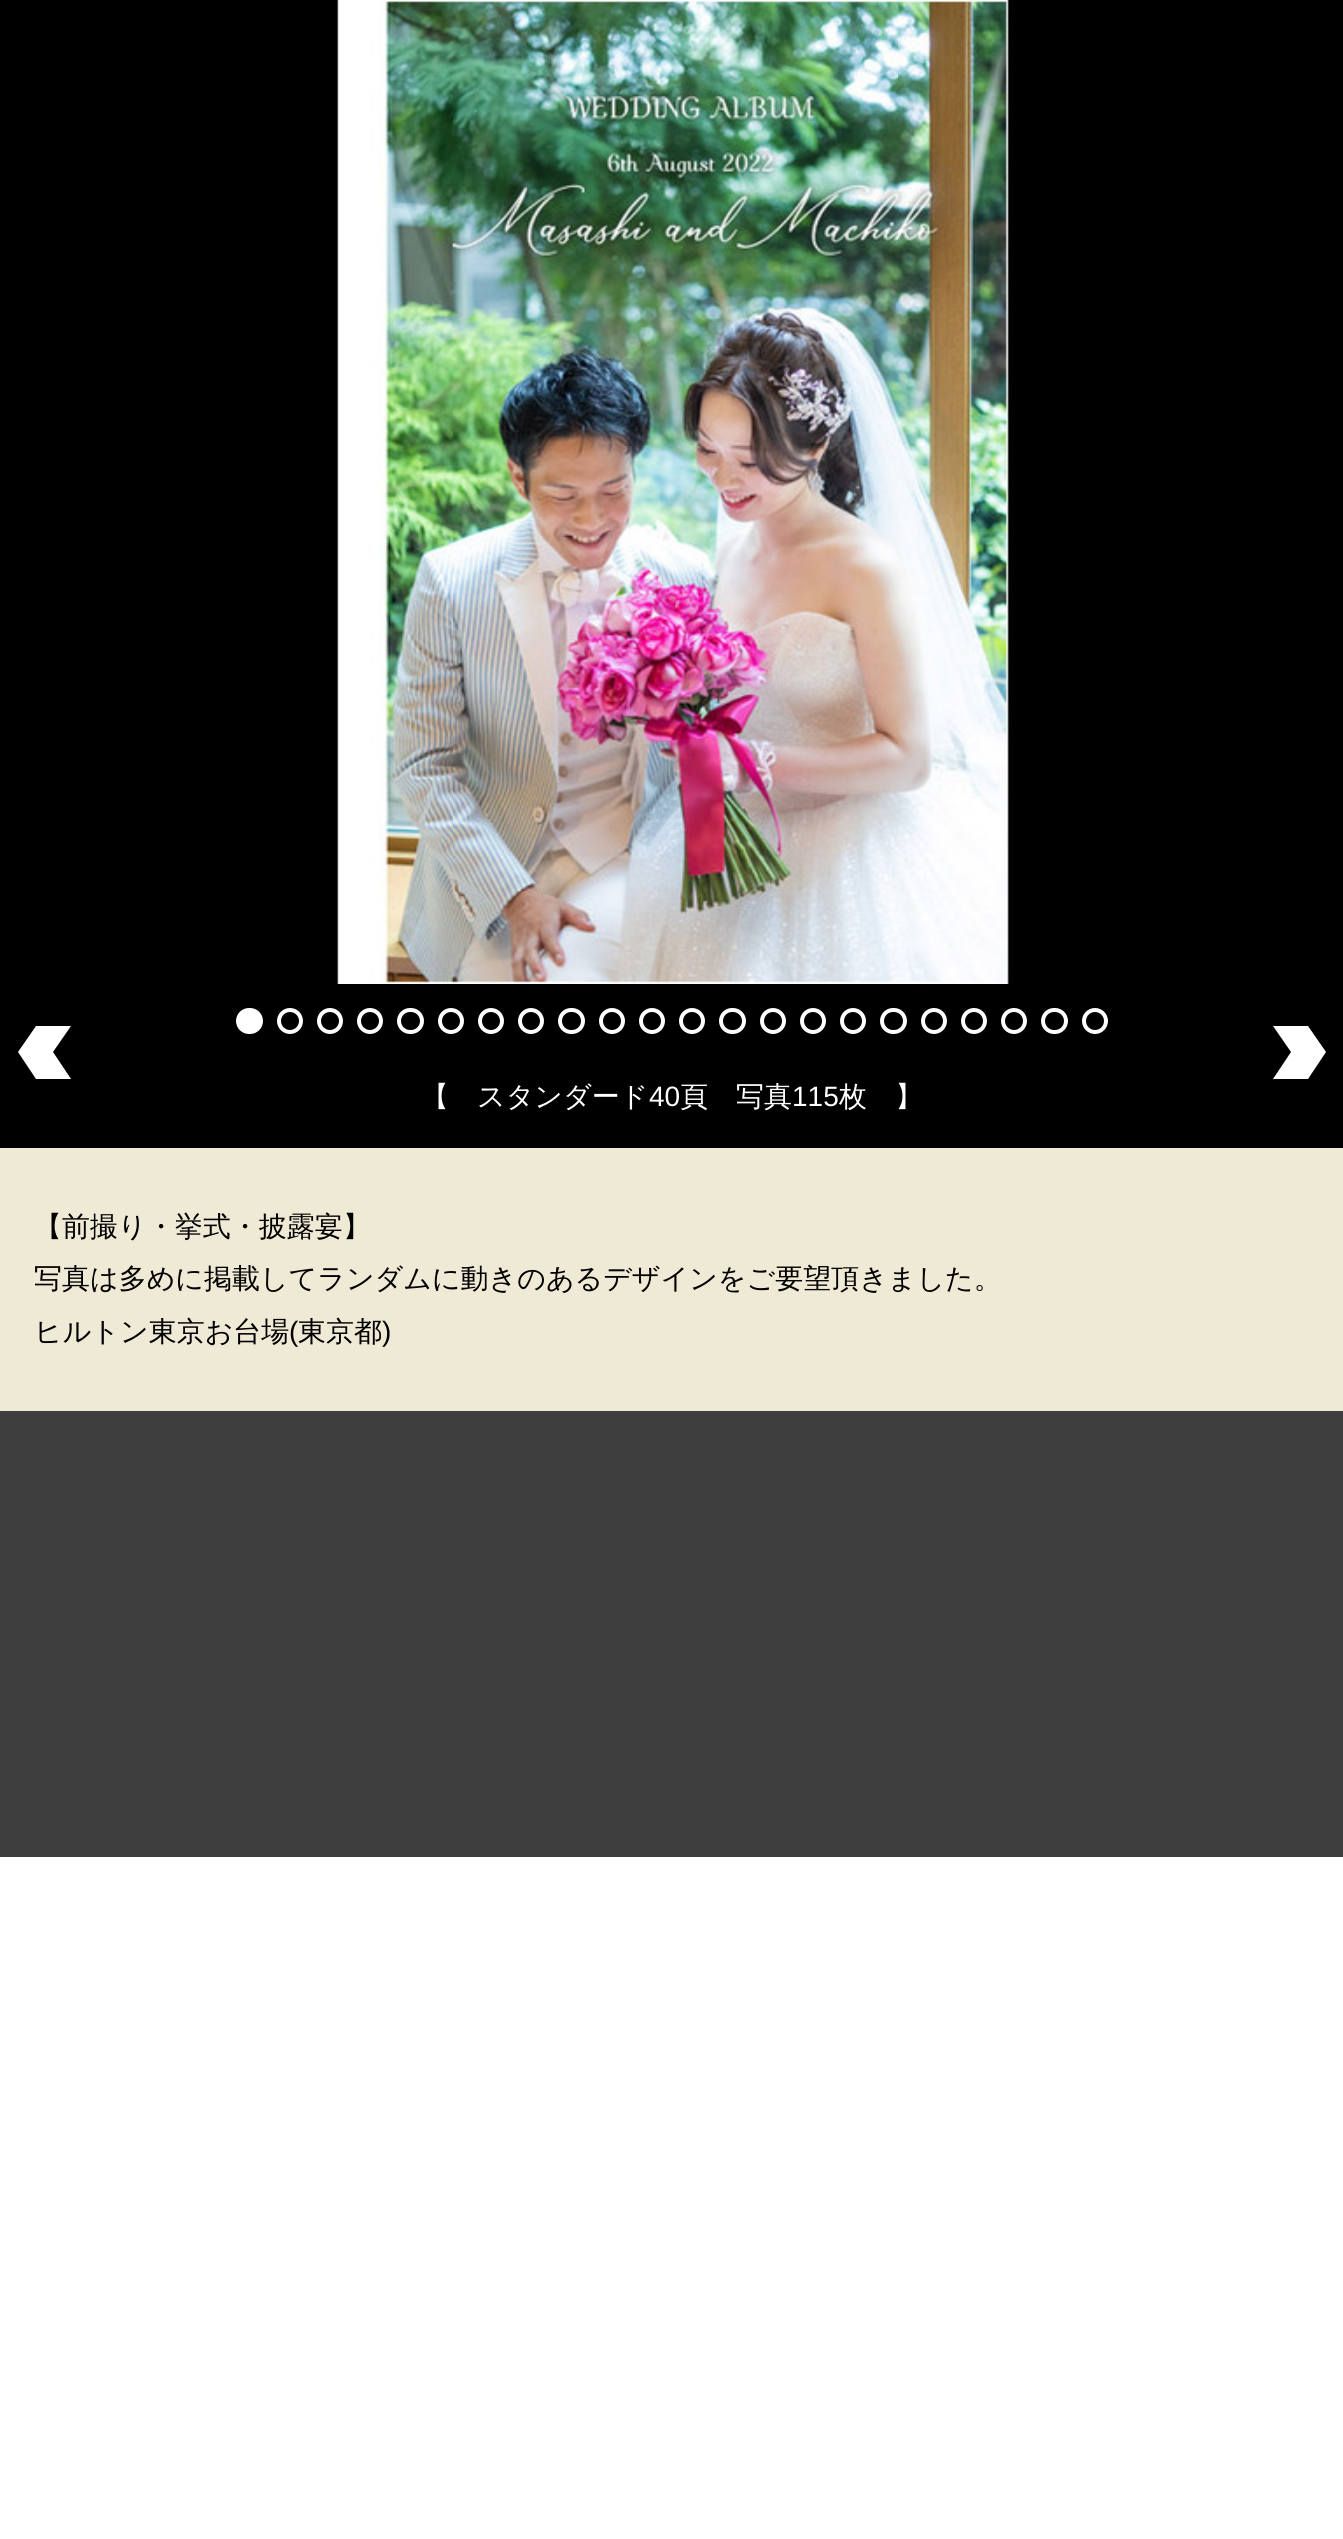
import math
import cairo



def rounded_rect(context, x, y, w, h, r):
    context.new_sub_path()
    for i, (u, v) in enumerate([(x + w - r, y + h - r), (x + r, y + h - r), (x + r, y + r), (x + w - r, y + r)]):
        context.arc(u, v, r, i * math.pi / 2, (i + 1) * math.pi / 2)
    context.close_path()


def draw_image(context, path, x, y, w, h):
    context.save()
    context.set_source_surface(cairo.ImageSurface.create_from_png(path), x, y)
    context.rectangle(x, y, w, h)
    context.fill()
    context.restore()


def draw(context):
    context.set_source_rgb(1, 1, 1)
    context.paint()
    context.set_source_rgb(0, 0, 0)
    context.rectangle(0, 0, 1343, 1148)
    context.fill()
    draw_image(context, "images/1.png", 337, 0, 678, 984)
    context.set_source_rgb(1, 1, 1)
    context.new_path()
    context.move_to(36, 1026)
    context.line_to(71, 1026)
    context.line_to(53, 1052)
    context.line_to(18, 1052)
    context.close_path()
    context.move_to(18, 1052)
    context.line_to(53, 1052)
    context.line_to(71, 1079)
    context.line_to(36, 1079)
    context.close_path()
    context.fill()
    context.new_path()
    context.move_to(1308, 1079)
    context.line_to(1273, 1079)
    context.line_to(1291, 1052)
    context.line_to(1326, 1052)
    context.close_path()
    context.move_to(1326, 1052)
    context.line_to(1291, 1052)
    context.line_to(1273, 1026)
    context.line_to(1308, 1026)
    context.close_path()
    context.fill()
    rounded_rect(context, 238, 1010, 23, 22, 11)
    context.fill_preserve()
    context.set_line_width(4)
    context.stroke()
    context.arc(290, 1021, 11, 0, 2 * math.pi)
    context.stroke()
    context.arc(330, 1021, 11, 0, 2 * math.pi)
    context.stroke()
    context.arc(370, 1021, 11, 0, 2 * math.pi)
    context.stroke()
    rounded_rect(context, 399, 1010, 23, 22, 11)
    context.stroke()
    context.arc(451, 1021, 11, 0, 2 * math.pi)
    context.stroke()
    context.arc(491, 1021, 11, 0, 2 * math.pi)
    context.stroke()
    context.arc(531, 1021, 11, 0, 2 * math.pi)
    context.stroke()
    rounded_rect(context, 560, 1010, 23, 22, 11)
    context.stroke()
    context.arc(612, 1021, 11, 0, 2 * math.pi)
    context.stroke()
    context.arc(652, 1021, 11, 0, 2 * math.pi)
    context.stroke()
    context.arc(692, 1021, 11, 0, 2 * math.pi)
    context.stroke()
    rounded_rect(context, 721, 1010, 23, 22, 11)
    context.stroke()
    context.arc(773, 1021, 11, 0, 2 * math.pi)
    context.stroke()
    context.arc(813, 1021, 11, 0, 2 * math.pi)
    context.stroke()
    context.arc(853, 1021, 11, 0, 2 * math.pi)
    context.stroke()
    rounded_rect(context, 882, 1010, 23, 22, 11)
    context.stroke()
    context.arc(934, 1021, 11, 0, 2 * math.pi)
    context.stroke()
    context.arc(974, 1021, 11, 0, 2 * math.pi)
    context.stroke()
    context.arc(1014, 1021, 11, 0, 2 * math.pi)
    context.stroke()
    rounded_rect(context, 1043, 1010, 23, 22, 11)
    context.stroke()
    context.arc(1095, 1021, 11, 0, 2 * math.pi)
    context.stroke()
    context.set_source_rgb(239 / 255, 234 / 255, 213 / 255)
    context.rectangle(0, 1148, 1343, 263)
    context.fill()
    context.set_source_rgb(62 / 255, 62 / 255, 62 / 255)
    context.rectangle(0, 1411, 1343, 446)
    context.fill()
    context.select_font_face("WenQuanYi Zen Hei Medium")
    context.set_font_size(28)
    context.set_source_rgb(1, 1, 1)
    context.move_to(421, 1106)
    context.show_text("【　スタンダード")
    context.select_font_face("Liberation Sans")
    context.move_to(649, 1106)
    context.show_text("40")
    context.select_font_face("WenQuanYi Zen Hei Medium")
    context.move_to(680, 1106)
    context.show_text("頁　写真")
    context.select_font_face("Liberation Sans")
    context.move_to(792, 1106)
    context.show_text("115")
    context.select_font_face("WenQuanYi Zen Hei Medium")
    context.move_to(839, 1106)
    context.show_text("枚　】")
    context.set_source_rgb(0, 0, 0)
    context.move_to(34, 1236)
    context.show_text("【前撮り・挙式・披露宴】")
    context.move_to(34, 1288)
    context.show_text("写真は多めに掲載してランダムに動きのあるデザインをご要望頂きました。")
    context.move_to(34, 1341)
    context.show_text("ヒルトン東京お台場")
    context.select_font_face("Liberation Sans")
    context.move_to(289, 1341)
    context.show_text("(")
    context.select_font_face("WenQuanYi Zen Hei Medium")
    context.move_to(298, 1341)
    context.show_text("東京都")
    context.select_font_face("Liberation Sans")
    context.move_to(382, 1341)
    context.show_text(")")


surface = cairo.ImageSurface(cairo.Format.RGB24, 1343, 2539)
context = cairo.Context(surface)
options = cairo.FontOptions()
options.set_hint_metrics(cairo.HintMetrics.OFF)
options.set_hint_style(cairo.HintStyle.NONE)
context.set_font_options(options)
context.set_miter_limit(4)
draw(context)
surface.write_to_png("out.png")
